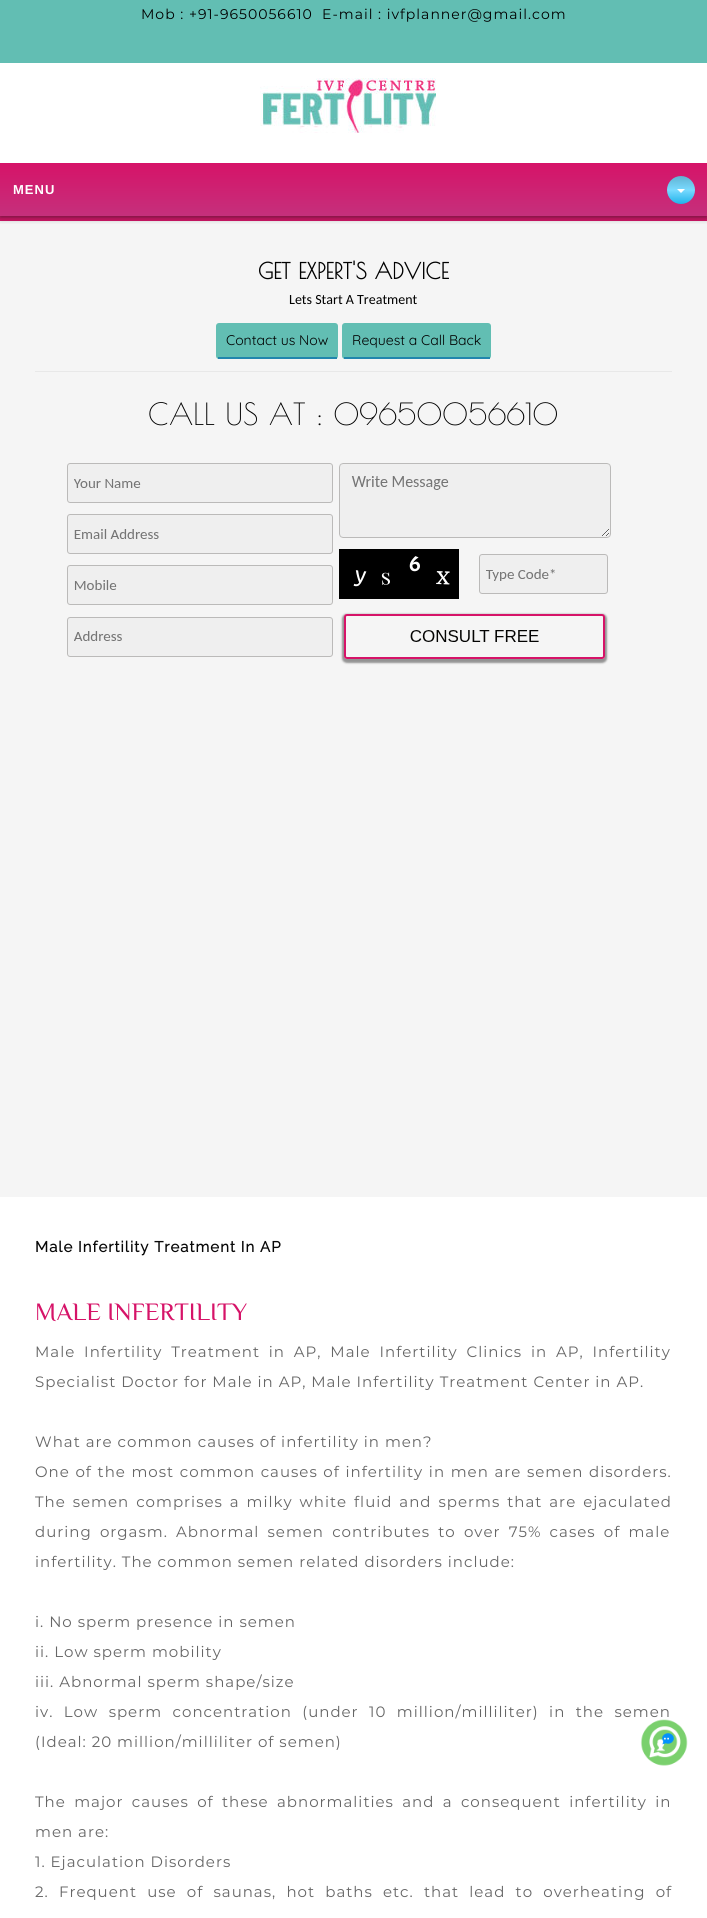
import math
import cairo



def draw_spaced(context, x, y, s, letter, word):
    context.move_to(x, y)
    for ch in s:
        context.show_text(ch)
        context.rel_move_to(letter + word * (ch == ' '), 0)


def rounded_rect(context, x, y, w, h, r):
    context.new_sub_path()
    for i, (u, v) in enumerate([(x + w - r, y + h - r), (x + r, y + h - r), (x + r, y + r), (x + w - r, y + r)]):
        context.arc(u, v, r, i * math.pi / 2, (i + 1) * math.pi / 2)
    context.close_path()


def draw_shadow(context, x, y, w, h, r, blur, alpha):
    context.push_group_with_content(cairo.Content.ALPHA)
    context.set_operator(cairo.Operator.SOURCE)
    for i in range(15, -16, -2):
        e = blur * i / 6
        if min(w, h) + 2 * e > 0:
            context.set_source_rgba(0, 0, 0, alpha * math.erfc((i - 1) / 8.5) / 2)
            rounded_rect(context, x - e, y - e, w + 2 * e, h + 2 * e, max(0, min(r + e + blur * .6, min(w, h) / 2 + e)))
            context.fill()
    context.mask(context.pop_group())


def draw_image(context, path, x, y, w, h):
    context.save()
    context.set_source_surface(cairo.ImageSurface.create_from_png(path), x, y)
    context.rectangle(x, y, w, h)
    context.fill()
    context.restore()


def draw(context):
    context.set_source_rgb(1, 1, 1)
    context.paint()
    context.set_source_rgb(214 / 255, 19 / 255, 104 / 255)
    context.rectangle(0, 216, 707, 5)
    context.fill()
    context.set_source_rgb(245 / 255, 245 / 255, 245 / 255)
    context.rectangle(0, 221, 707, 976)
    context.fill()
    context.save()
    context.rectangle(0, 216, 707, 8)
    context.clip()
    context.set_source_rgb(26 / 255, 27 / 255, 27 / 255)
    draw_shadow(context, 0, 0, 707, 216, 0, 4, 0.84)
    context.restore()
    context.set_source_rgb(98 / 255, 190 / 255, 179 / 255)
    context.rectangle(0, 0, 707, 63)
    context.fill()
    draw_image(context, "images/1.png", 260, 78, 176, 55)
    gradient = cairo.LinearGradient(354, 163, 354, 216)
    gradient.add_color_stop_rgba(0, 214 / 255, 19 / 255, 104 / 255, 1)
    gradient.add_color_stop_rgba(1, 197 / 255, 48 / 255, 124 / 255, 1)
    context.set_source(gradient)
    context.rectangle(0, 163, 707, 53)
    context.fill()
    gradient = cairo.LinearGradient(695, 176, 695, 232)
    gradient.add_color_stop_rgba(0, 96 / 255, 179 / 255, 210 / 255, 1)
    gradient.add_color_stop_rgba(0.25, 121 / 255, 218 / 255, 1, 1)
    gradient.add_color_stop_rgba(0.5, 32 / 255, 179 / 255, 234 / 255, 1)
    gradient.add_color_stop_rgba(0.75, 59 / 255, 192 / 255, 243 / 255, 1)
    gradient.add_color_stop_rgba(1, 92 / 255, 189 / 255, 226 / 255, 1)
    context.set_source(gradient)
    context.arc(681, 190, 14, 0, 2 * math.pi)
    context.fill()
    context.set_source_rgb(1, 1, 1)
    context.new_path()
    context.move_to(677, 189)
    context.line_to(685, 189)
    context.line_to(681, 193)
    context.close_path()
    context.fill()
    context.set_source_rgb(232 / 255, 232 / 255, 232 / 255)
    context.rectangle(35, 371, 637, 1)
    context.fill()
    context.set_source_rgb(98 / 255, 190 / 255, 179 / 255)
    rounded_rect(context, 216, 323, 122, 36, 3)
    context.fill()
    context.set_source_rgb(33 / 255, 134 / 255, 173 / 255)
    context.rectangle(218, 357, 119, 2)
    context.fill()
    context.set_source_rgb(98 / 255, 190 / 255, 179 / 255)
    rounded_rect(context, 342, 323, 149, 36, 3)
    context.fill()
    context.set_source_rgb(33 / 255, 134 / 255, 173 / 255)
    context.rectangle(344, 357, 146, 2)
    context.fill()
    draw_image(context, "images/2.png", 67, 463, 544, 202)
    context.select_font_face("Montserrat Thin")
    context.set_font_size(14)
    context.set_source_rgb(0, 0, 0)
    draw_spaced(context, 141, 19, "Mob : +91-9650056610  E-mail : ivfplanner@gmail.com", 1, 0)
    context.select_font_face("Liberation Sans", cairo.FontSlant.NORMAL, cairo.FontWeight.BOLD)
    context.set_font_size(13)
    context.set_source_rgb(1, 1, 1)
    draw_spaced(context, 13, 194, "MENU", 1, 0)
    context.select_font_face("Poiret One", cairo.FontSlant.NORMAL, cairo.FontWeight.BOLD)
    context.set_font_size(22)
    context.set_source_rgb(0, 0, 0)
    context.move_to(258, 279)
    context.show_text("GET EXPERT'S ADVICE")
    context.select_font_face("Carlito")
    context.set_font_size(14)
    context.move_to(289, 304)
    context.show_text("Lets Start A Treatment")
    context.select_font_face("Quicksand Light")
    context.move_to(226, 345)
    context.show_text("Contact us Now")
    context.move_to(352, 345)
    context.show_text("Request a Call Back")
    context.select_font_face("Poiret One")
    context.set_font_size(30)
    context.move_to(148, 425)
    context.show_text("CALL US AT : 09650056610")
    context.select_font_face("Raleway", cairo.FontSlant.NORMAL, cairo.FontWeight.BOLD)
    context.set_font_size(15)
    context.set_source_rgb(8 / 255, 8 / 255, 8 / 255)
    draw_spaced(context, 35, 1252, "Male Infertility Treatment In AP", 1, 0)
    context.select_font_face("Philosopher")
    context.set_font_size(25)
    context.set_source_rgb(214 / 255, 19 / 255, 104 / 255)
    context.move_to(35, 1320)
    context.show_text("MALE INFERTILITY")
    context.select_font_face("Montserrat Thin")
    context.set_font_size(15)
    context.set_source_rgb(102 / 255, 102 / 255, 102 / 255)
    draw_spaced(context, 35, 1357, "Male Infertility Treatment in AP, Male Infertility Clinics in AP, Infertility", 1, 3.9)
    draw_spaced(context, 35, 1387, "Specialist Doctor for Male in AP, Male Infertility Treatment Center in AP.", 1, 0)
    draw_spaced(context, 35, 1447, "What are common causes of infertility in men?", 1, 0)
    draw_spaced(context, 35, 1477, "One of the most common causes of infertility in men are semen disorders.", 1, 0.7)
    draw_spaced(context, 35, 1507, "The semen comprises a milky white fluid and sperms that are ejaculated", 1, 2)
    draw_spaced(context, 35, 1537, "during orgasm. Abnormal semen contributes to over 75% cases of male", 1, 3.25)
    draw_spaced(context, 35, 1567, "infertility. The common semen related disorders include:", 1, 0)
    draw_spaced(context, 35, 1627, "i. No sperm presence in semen", 1, 0)
    draw_spaced(context, 35, 1657, "ii. Low sperm mobility", 1, 0)
    draw_spaced(context, 35, 1687, "iii. Abnormal sperm shape/size", 1, 0)
    draw_spaced(context, 35, 1717, "iv. Low sperm concentration (under 10 million/milliliter) in the semen", 1, 5.5)
    draw_spaced(context, 35, 1747, "(Ideal: 20 million/milliliter of semen)", 1, 0)
    draw_spaced(context, 35, 1807, "The major causes of these abnormalities and a consequent infertility in", 1, 3.4)
    draw_spaced(context, 35, 1837, "men are:", 1, 0)
    draw_spaced(context, 35, 1867, "1. Ejaculation Disorders", 1, 0)
    draw_spaced(context, 35, 1897, "2. Frequent use of saunas, hot baths etc. that lead to overheating of", 1, 5.25)
    draw_image(context, "images/3.png", 640, 1719, 48, 47)


surface = cairo.ImageSurface(cairo.Format.RGB24, 707, 1918)
context = cairo.Context(surface)
options = cairo.FontOptions()
options.set_hint_metrics(cairo.HintMetrics.OFF)
options.set_hint_style(cairo.HintStyle.NONE)
context.set_font_options(options)
context.set_miter_limit(4)
draw(context)
surface.write_to_png("out.png")
